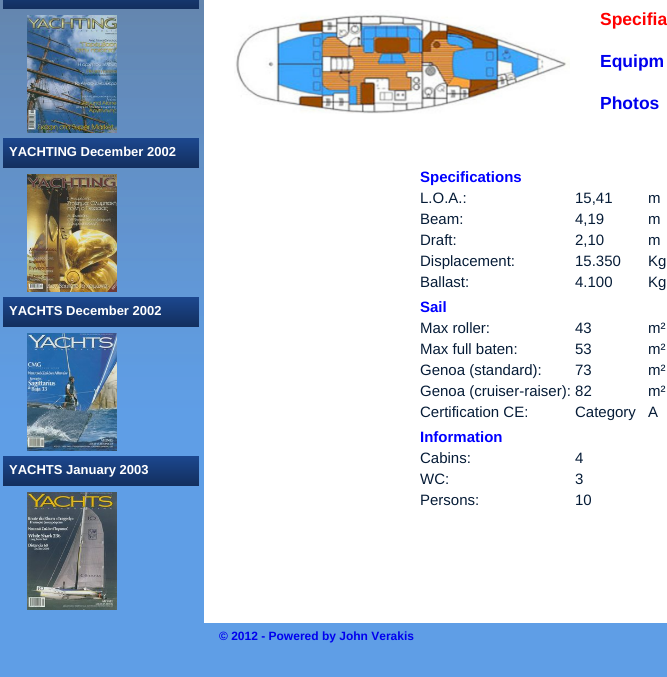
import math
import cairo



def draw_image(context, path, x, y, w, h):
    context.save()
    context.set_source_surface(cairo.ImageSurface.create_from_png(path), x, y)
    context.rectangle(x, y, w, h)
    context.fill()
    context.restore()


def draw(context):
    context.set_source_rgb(1, 1, 1)
    context.paint()
    draw_image(context, "images/1.png", 0, 0, 667, 677)
    draw_image(context, "images/2.png", 3, 0, 196, 9)
    draw_image(context, "images/3.png", 27, 15, 90, 118)
    draw_image(context, "images/4.png", 3, 138, 196, 30)
    draw_image(context, "images/5.png", 27, 174, 90, 118)
    draw_image(context, "images/4.png", 3, 297, 196, 30)
    draw_image(context, "images/6.png", 27, 333, 90, 118)
    draw_image(context, "images/4.png", 3, 456, 196, 30)
    draw_image(context, "images/7.png", 27, 492, 90, 118)
    context.set_source_rgb(1, 1, 1)
    context.rectangle(204, 0, 463, 623)
    context.fill()
    draw_image(context, "images/8.png", 234, 10, 336, 104)
    context.select_font_face("Liberation Sans", cairo.FontSlant.NORMAL, cairo.FontWeight.BOLD)
    context.set_font_size(13)
    context.move_to(9, 156)
    context.show_text("YACHTING December 2002")
    context.move_to(9, 315)
    context.show_text("YACHTS December 2002")
    context.move_to(9, 474)
    context.show_text("YACHTS January 2003")
    context.set_font_size(17.5)
    context.set_source_rgb(1, 0, 0)
    context.move_to(600, 25)
    context.show_text("Specifia")
    context.set_source_rgb(0, 0, 238 / 255)
    context.move_to(600, 67)
    context.show_text("Equipm")
    context.move_to(600, 109)
    context.show_text("Photos")
    context.set_font_size(15)
    context.set_source_rgb(0, 0, 1)
    context.move_to(420, 182)
    context.show_text("Specifications")
    context.select_font_face("Liberation Sans")
    context.set_source_rgb(6 / 255, 28 / 255, 55 / 255)
    context.move_to(420, 203)
    context.show_text("L.O.A.:")
    context.move_to(575, 203)
    context.show_text("15,41")
    context.move_to(648, 203)
    context.show_text("m")
    context.move_to(420, 224)
    context.show_text("Beam:")
    context.move_to(575, 224)
    context.show_text("4,19")
    context.move_to(648, 224)
    context.show_text("m")
    context.move_to(420, 245)
    context.show_text("Draft:")
    context.move_to(575, 245)
    context.show_text("2,10")
    context.move_to(648, 245)
    context.show_text("m")
    context.move_to(420, 266)
    context.show_text("Displacement:")
    context.move_to(575, 266)
    context.show_text("15.350")
    context.move_to(648, 266)
    context.show_text("Kg")
    context.move_to(420, 287)
    context.show_text("Ballast:")
    context.move_to(575, 287)
    context.show_text("4.100")
    context.move_to(648, 287)
    context.show_text("Kg")
    context.select_font_face("Liberation Sans", cairo.FontSlant.NORMAL, cairo.FontWeight.BOLD)
    context.set_source_rgb(0, 0, 1)
    context.move_to(420, 312)
    context.show_text("Sail")
    context.select_font_face("Liberation Sans")
    context.set_source_rgb(6 / 255, 28 / 255, 55 / 255)
    context.move_to(420, 333)
    context.show_text("Max roller:")
    context.move_to(575, 333)
    context.show_text("43")
    context.move_to(648, 333)
    context.show_text("m²")
    context.move_to(420, 354)
    context.show_text("Max full baten:")
    context.move_to(575, 354)
    context.show_text("53")
    context.move_to(648, 354)
    context.show_text("m²")
    context.move_to(420, 375)
    context.show_text("Genoa (standard):")
    context.move_to(575, 375)
    context.show_text("73")
    context.move_to(648, 375)
    context.show_text("m²")
    context.move_to(420, 396)
    context.show_text("Genoa (cruiser-raiser): 82")
    context.move_to(648, 396)
    context.show_text("m²")
    context.move_to(420, 417)
    context.show_text("Certification CE:")
    context.move_to(575, 417)
    context.show_text("Category")
    context.move_to(648, 417)
    context.show_text("A")
    context.select_font_face("Liberation Sans", cairo.FontSlant.NORMAL, cairo.FontWeight.BOLD)
    context.set_source_rgb(0, 0, 1)
    context.move_to(420, 442)
    context.show_text("Information")
    context.select_font_face("Liberation Sans")
    context.set_source_rgb(6 / 255, 28 / 255, 55 / 255)
    context.move_to(420, 463)
    context.show_text("Cabins:")
    context.move_to(575, 463)
    context.show_text("4")
    context.move_to(420, 484)
    context.show_text("WC:")
    context.move_to(575, 484)
    context.show_text("3")
    context.move_to(420, 505)
    context.show_text("Persons:")
    context.move_to(575, 505)
    context.show_text("10")
    context.select_font_face("Liberation Sans", cairo.FontSlant.NORMAL, cairo.FontWeight.BOLD)
    context.set_font_size(12)
    context.set_source_rgb(0, 0, 238 / 255)
    context.move_to(219, 640)
    context.show_text("© 2012 - Powered by John Verakis")


surface = cairo.ImageSurface(cairo.Format.RGB24, 667, 677)
context = cairo.Context(surface)
options = cairo.FontOptions()
options.set_hint_metrics(cairo.HintMetrics.OFF)
options.set_hint_style(cairo.HintStyle.NONE)
context.set_font_options(options)
context.set_miter_limit(4)
draw(context)
surface.write_to_png("out.png")
